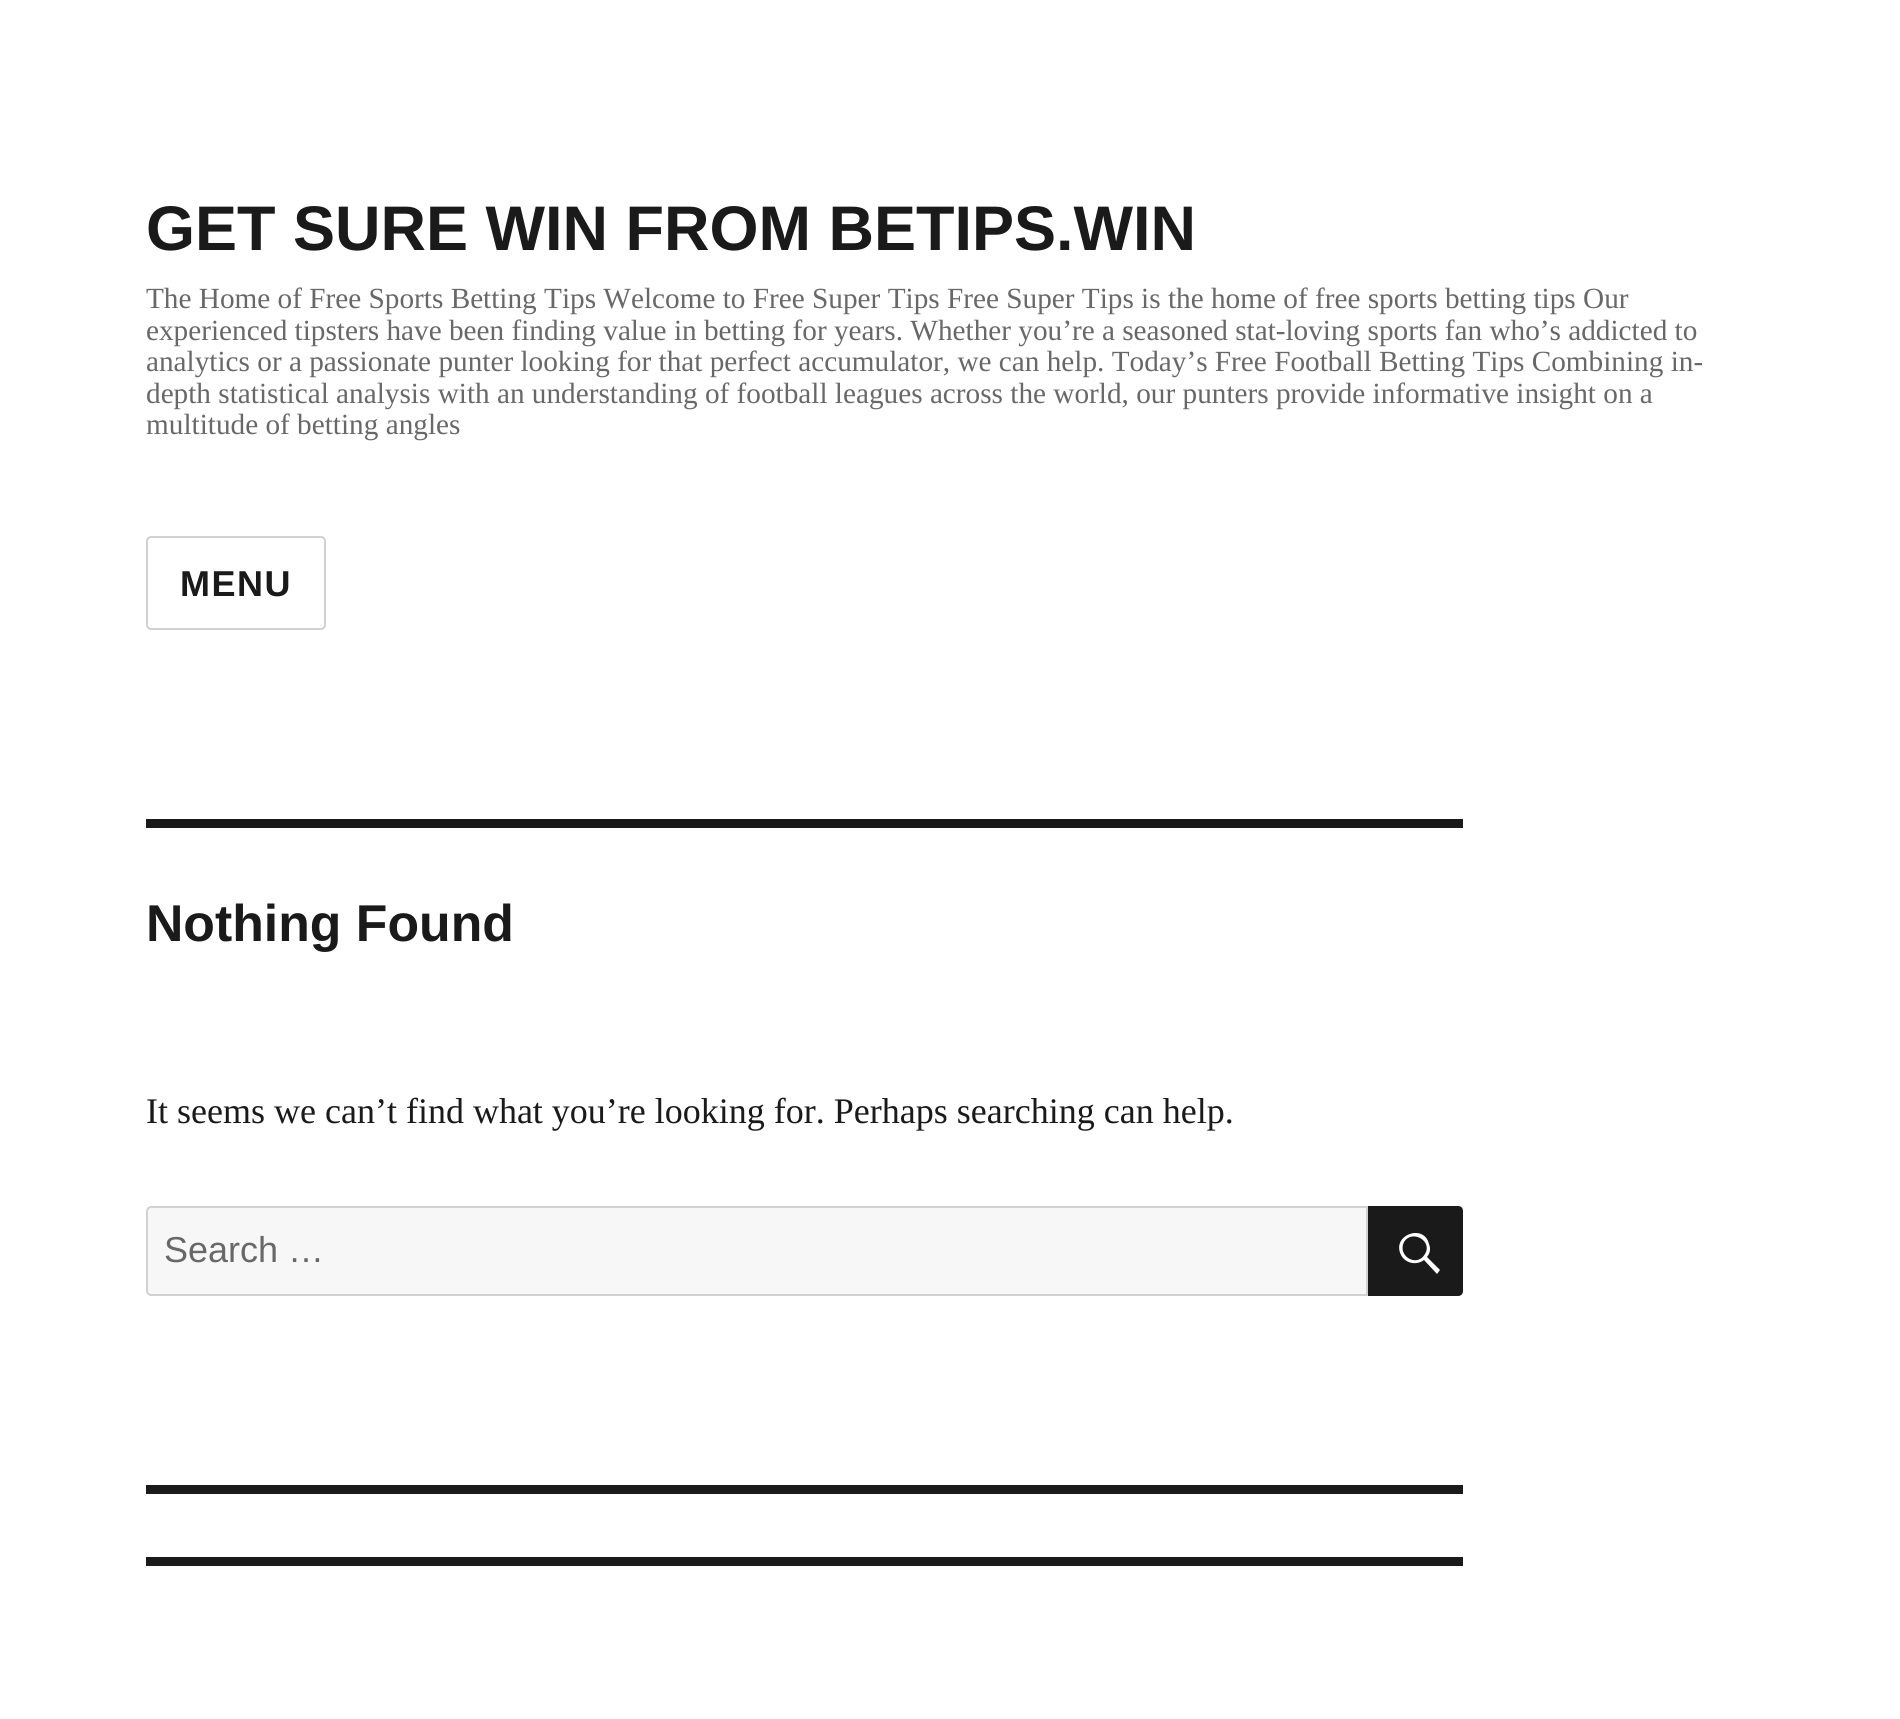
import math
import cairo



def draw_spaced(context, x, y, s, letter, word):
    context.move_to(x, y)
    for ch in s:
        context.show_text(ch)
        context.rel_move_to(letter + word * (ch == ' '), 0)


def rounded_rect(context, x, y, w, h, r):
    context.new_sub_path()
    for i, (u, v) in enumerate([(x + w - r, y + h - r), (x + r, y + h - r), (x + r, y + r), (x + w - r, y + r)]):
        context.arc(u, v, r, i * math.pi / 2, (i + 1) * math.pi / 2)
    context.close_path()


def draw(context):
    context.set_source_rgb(1, 1, 1)
    context.paint()
    rounded_rect(context, 147, 537, 178, 92, 4)
    context.set_source_rgb(209 / 255, 209 / 255, 209 / 255)
    context.stroke()
    context.set_source_rgb(26 / 255, 26 / 255, 26 / 255)
    context.rectangle(146, 819, 1317, 9)
    context.fill()
    context.set_source_rgb(247 / 255, 247 / 255, 247 / 255)
    context.new_path()
    context.move_to(151, 1207)
    context.line_to(1367, 1207)
    context.line_to(1367, 1295)
    context.line_to(151, 1295)
    context.curve_to(149, 1295, 147, 1293, 147, 1291)
    context.line_to(147, 1211)
    context.curve_to(147, 1209, 149, 1207, 151, 1207)
    context.close_path()
    context.fill_preserve()
    context.set_source_rgb(209 / 255, 209 / 255, 209 / 255)
    context.stroke()
    context.set_source_rgb(26 / 255, 26 / 255, 26 / 255)
    context.new_path()
    context.move_to(1368, 1206)
    context.line_to(1458, 1206)
    context.curve_to(1461, 1206, 1463, 1208, 1463, 1211)
    context.line_to(1463, 1291)
    context.curve_to(1463, 1294, 1461, 1296, 1458, 1296)
    context.line_to(1368, 1296)
    context.close_path()
    context.fill()
    context.set_source_rgb(1, 1, 1)
    context.new_path()
    context.move_to(1440, 1270)
    context.line_to(1437, 1274)
    context.line_to(1424, 1260)
    context.curve_to(1416, 1266, 1405, 1263, 1401, 1255)
    context.curve_to(1391, 1235, 1424, 1223, 1429, 1244)
    context.curve_to(1431, 1249, 1430, 1253, 1427, 1257)
    context.close_path()
    context.move_to(1404, 1242)
    context.curve_to(1397, 1256, 1417, 1268, 1425, 1254)
    context.curve_to(1433, 1241, 1412, 1229, 1404, 1242)
    context.close_path()
    context.fill()
    context.set_source_rgb(26 / 255, 26 / 255, 26 / 255)
    context.rectangle(146, 1485, 1317, 9)
    context.fill()
    context.rectangle(146, 1557, 1317, 9)
    context.fill()
    context.select_font_face("Liberation Sans", cairo.FontSlant.NORMAL, cairo.FontWeight.BOLD)
    context.set_font_size(63)
    context.move_to(146, 250)
    context.show_text("GET SURE WIN FROM BETIPS.WIN")
    context.select_font_face("Liberation Serif")
    context.set_font_size(29.25)
    context.set_source_rgb(104 / 255, 104 / 255, 104 / 255)
    context.move_to(146, 308)
    context.show_text("The Home of Free Sports Betting Tips Welcome to Free Super Tips Free Super Tips is the home of free sports betting tips Our")
    context.move_to(146, 340)
    context.show_text("experienced tipsters have been finding value in betting for years. Whether you’re a seasoned stat-loving sports fan who’s addicted to")
    context.move_to(146, 371)
    context.show_text("analytics or a passionate punter looking for that perfect accumulator, we can help. Today’s Free Football Betting Tips Combining in-")
    context.move_to(146, 403)
    context.show_text("depth statistical analysis with an understanding of football leagues across the world, our punters provide informative insight on a")
    context.move_to(146, 434)
    context.show_text("multitude of betting angles")
    context.select_font_face("Liberation Sans", cairo.FontSlant.NORMAL, cairo.FontWeight.BOLD)
    context.set_font_size(36)
    context.set_source_rgb(26 / 255, 26 / 255, 26 / 255)
    draw_spaced(context, 180, 596, "MENU", 1.5, 0)
    context.set_font_size(51.75)
    context.move_to(146, 941)
    context.show_text("Nothing Found")
    context.select_font_face("Liberation Serif")
    context.set_font_size(36)
    context.move_to(146, 1123)
    context.show_text("It seems we can’t find what you’re looking for. Perhaps searching can help.")
    context.select_font_face("Liberation Sans")
    context.set_source_rgb(104 / 255, 104 / 255, 104 / 255)
    context.move_to(164, 1262)
    context.show_text("Search …")


surface = cairo.ImageSurface(cairo.Format.RGB24, 1900, 1719)
context = cairo.Context(surface)
options = cairo.FontOptions()
options.set_hint_metrics(cairo.HintMetrics.OFF)
options.set_hint_style(cairo.HintStyle.NONE)
context.set_font_options(options)
context.set_miter_limit(4)
draw(context)
surface.write_to_png("out.png")
